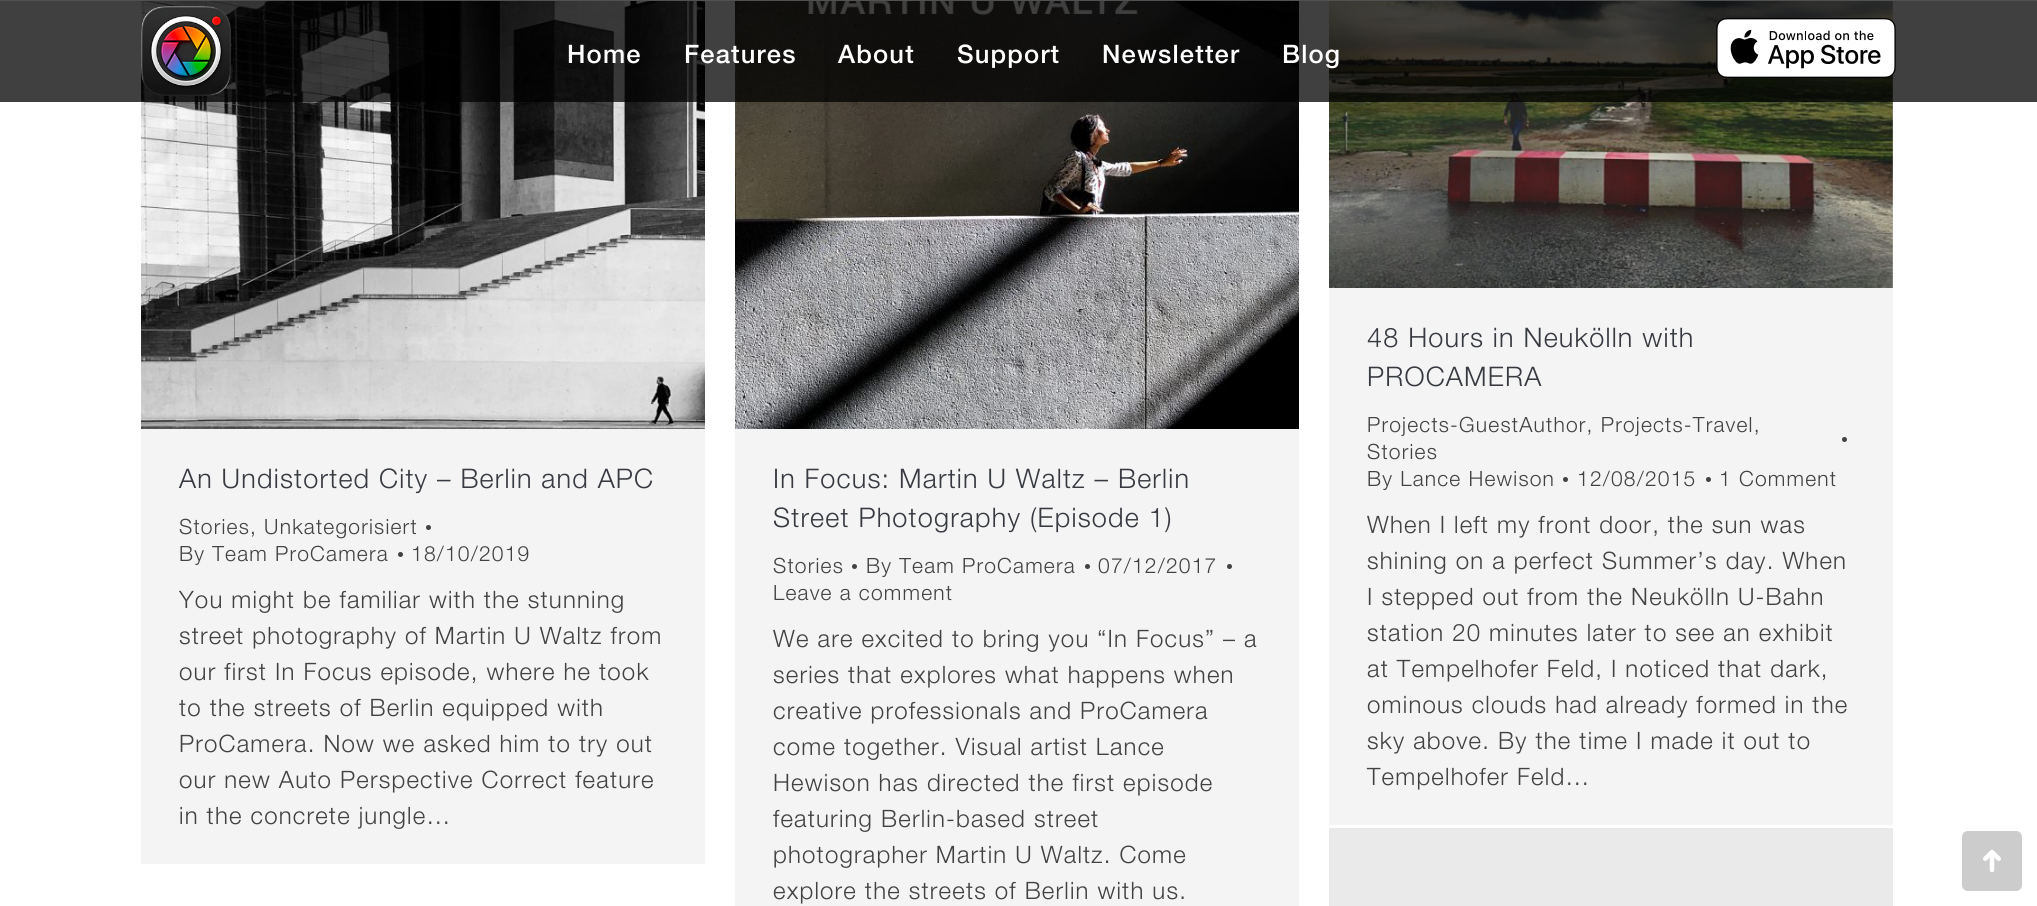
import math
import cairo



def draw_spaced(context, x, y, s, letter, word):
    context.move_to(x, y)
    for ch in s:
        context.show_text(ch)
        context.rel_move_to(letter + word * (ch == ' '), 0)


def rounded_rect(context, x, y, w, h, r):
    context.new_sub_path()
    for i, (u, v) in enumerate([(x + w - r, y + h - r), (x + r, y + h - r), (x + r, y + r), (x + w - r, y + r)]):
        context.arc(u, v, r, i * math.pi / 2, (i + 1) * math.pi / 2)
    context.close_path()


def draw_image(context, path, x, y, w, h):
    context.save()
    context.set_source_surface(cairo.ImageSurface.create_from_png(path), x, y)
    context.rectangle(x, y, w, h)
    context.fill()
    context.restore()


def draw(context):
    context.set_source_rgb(1, 1, 1)
    context.paint()
    draw_image(context, "images/3.png", 141, 1, 564, 428)
    draw_image(context, "images/4.png", 735, 1, 564, 428)
    context.set_source_rgb(244 / 255, 244 / 255, 244 / 255)
    context.rectangle(1329, 1, 564, 824)
    context.fill()
    draw_image(context, "images/5.png", 1329, 1, 564, 287)
    context.set_source_rgba(0, 0, 0, 0.75)
    context.rectangle(0, 1, 2037, 101)
    context.fill()
    context.set_source_rgb(81 / 255, 81 / 255, 81 / 255)
    context.rectangle(0, 0, 2037, 1)
    context.fill()
    draw_image(context, "images/1.png", 141, 6, 90, 90)
    draw_image(context, "images/2.png", 1716, 18, 180, 60)
    context.set_source_rgb(244 / 255, 244 / 255, 244 / 255)
    context.rectangle(141, 429, 564, 435)
    context.fill()
    context.set_source_rgb(66 / 255, 66 / 255, 66 / 255)
    context.arc(428.5, 527.5, 2.5, 0, 2 * math.pi)
    context.fill()
    context.arc(400.5, 554.5, 2.5, 0, 2 * math.pi)
    context.fill()
    context.set_source_rgb(244 / 255, 244 / 255, 244 / 255)
    context.rectangle(735, 429, 564, 477)
    context.fill()
    context.set_source_rgb(66 / 255, 66 / 255, 66 / 255)
    context.arc(854.5, 566.5, 2.5, 0, 2 * math.pi)
    context.fill()
    context.arc(1087.5, 566.5, 2.5, 0, 2 * math.pi)
    context.fill()
    context.arc(1229.5, 566.5, 2.5, 0, 2 * math.pi)
    context.fill()
    context.arc(1844.5, 439.5, 2.5, 0, 2 * math.pi)
    context.fill()
    context.arc(1565.5, 479.5, 2.5, 0, 2 * math.pi)
    context.fill()
    context.arc(1708.5, 479.5, 2.5, 0, 2 * math.pi)
    context.fill()
    context.set_source_rgb(234 / 255, 234 / 255, 234 / 255)
    context.rectangle(1329, 828, 564, 78)
    context.fill()
    context.set_source_rgb(204 / 255, 204 / 255, 204 / 255)
    rounded_rect(context, 1962, 831, 60, 60, 6)
    context.fill()
    draw_image(context, "images/6.png", 1983, 849, 18, 24)
    context.select_font_face("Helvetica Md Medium")
    context.set_font_size(25.5)
    context.set_source_rgb(1, 1, 1)
    draw_spaced(context, 567, 63, "Home", 1.2, 0)
    draw_spaced(context, 684, 63, "Features", 1.2, 0)
    draw_spaced(context, 838, 63, "About", 1.2, 0)
    draw_spaced(context, 957, 63, "Support", 1.2, 0)
    draw_spaced(context, 1102, 63, "Newsletter", 1.2, 0)
    draw_spaced(context, 1282, 63, "Blog", 1.2, 0)
    context.select_font_face("Helvetica Light")
    context.set_font_size(27)
    context.set_source_rgb(55 / 255, 58 / 255, 65 / 255)
    draw_spaced(context, 179, 488, "An Undistorted City – Berlin and APC", 1.2, 0)
    context.set_font_size(21)
    context.set_source_rgb(66 / 255, 66 / 255, 66 / 255)
    draw_spaced(context, 179, 534, "Stories, Unkategorisiert", 1.2, 0)
    draw_spaced(context, 179, 561, "By Team ProCamera", 1.2, 0)
    draw_spaced(context, 411, 561, "18/10/2019", 1.2, 0)
    context.set_font_size(24)
    draw_spaced(context, 179, 608, "You might be familiar with the stunning", 1.2, 0)
    draw_spaced(context, 179, 644, "street photography of Martin U Waltz from", 1.2, 0)
    draw_spaced(context, 179, 680, "our first In Focus episode, where he took", 1.2, 0)
    draw_spaced(context, 179, 716, "to the streets of Berlin equipped with", 1.2, 0)
    draw_spaced(context, 179, 752, "ProCamera. Now we asked him to try out", 1.2, 0)
    draw_spaced(context, 179, 788, "our new Auto Perspective Correct feature", 1.2, 0)
    draw_spaced(context, 179, 824, "in the concrete jungle…", 1.2, 0)
    context.set_font_size(27)
    context.set_source_rgb(55 / 255, 58 / 255, 65 / 255)
    draw_spaced(context, 773, 488, "In Focus: Martin U Waltz – Berlin", 1.2, 0)
    draw_spaced(context, 773, 527, "Street Photography (Episode 1)", 1.2, 0)
    context.set_font_size(21)
    context.set_source_rgb(66 / 255, 66 / 255, 66 / 255)
    draw_spaced(context, 773, 573, "Stories", 1.2, 0)
    draw_spaced(context, 866, 573, "By Team ProCamera", 1.2, 0)
    draw_spaced(context, 1098, 573, "07/12/2017", 1.2, 0)
    draw_spaced(context, 773, 600, "Leave a comment", 1.2, 0)
    context.set_font_size(24)
    draw_spaced(context, 773, 647, "We are excited to bring you “In Focus” – a", 1.2, 0)
    draw_spaced(context, 773, 683, "series that explores what happens when", 1.2, 0)
    draw_spaced(context, 773, 719, "creative professionals and ProCamera", 1.2, 0)
    draw_spaced(context, 773, 755, "come together. Visual artist Lance", 1.2, 0)
    draw_spaced(context, 773, 791, "Hewison has directed the first episode", 1.2, 0)
    draw_spaced(context, 773, 827, "featuring Berlin-based street", 1.2, 0)
    draw_spaced(context, 773, 863, "photographer Martin U Waltz. Come", 1.2, 0)
    draw_spaced(context, 773, 899, "explore the streets of Berlin with us.", 1.2, 0)
    context.set_font_size(27)
    context.set_source_rgb(55 / 255, 58 / 255, 65 / 255)
    draw_spaced(context, 1367, 347, "48 Hours in Neukölln with", 1.2, 0)
    draw_spaced(context, 1367, 386, "PROCAMERA", 1.2, 0)
    context.set_font_size(21)
    context.set_source_rgb(66 / 255, 66 / 255, 66 / 255)
    draw_spaced(context, 1367, 432, "Projects-GuestAuthor, Projects-Travel,", 1.2, 0)
    draw_spaced(context, 1367, 459, "Stories", 1.2, 0)
    draw_spaced(context, 1367, 486, "By Lance Hewison", 1.2, 0)
    draw_spaced(context, 1577, 486, "12/08/2015", 1.2, 0)
    draw_spaced(context, 1719, 486, "1 Comment", 1.2, 0)
    context.set_font_size(24)
    draw_spaced(context, 1367, 533, "When I left my front door, the sun was", 1.2, 0)
    draw_spaced(context, 1367, 569, "shining on a perfect Summer’s day. When", 1.2, 0)
    draw_spaced(context, 1367, 605, "I stepped out from the Neukölln U-Bahn", 1.2, 0)
    draw_spaced(context, 1367, 641, "station 20 minutes later to see an exhibit", 1.2, 0)
    draw_spaced(context, 1367, 677, "at Tempelhofer Feld, I noticed that dark,", 1.2, 0)
    draw_spaced(context, 1367, 713, "ominous clouds had already formed in the", 1.2, 0)
    draw_spaced(context, 1367, 749, "sky above. By the time I made it out to", 1.2, 0)
    draw_spaced(context, 1367, 785, "Tempelhofer Feld…", 1.2, 0)


surface = cairo.ImageSurface(cairo.Format.RGB24, 2037, 906)
context = cairo.Context(surface)
options = cairo.FontOptions()
options.set_hint_metrics(cairo.HintMetrics.OFF)
options.set_hint_style(cairo.HintStyle.NONE)
context.set_font_options(options)
context.set_miter_limit(4)
draw(context)
surface.write_to_png("out.png")
